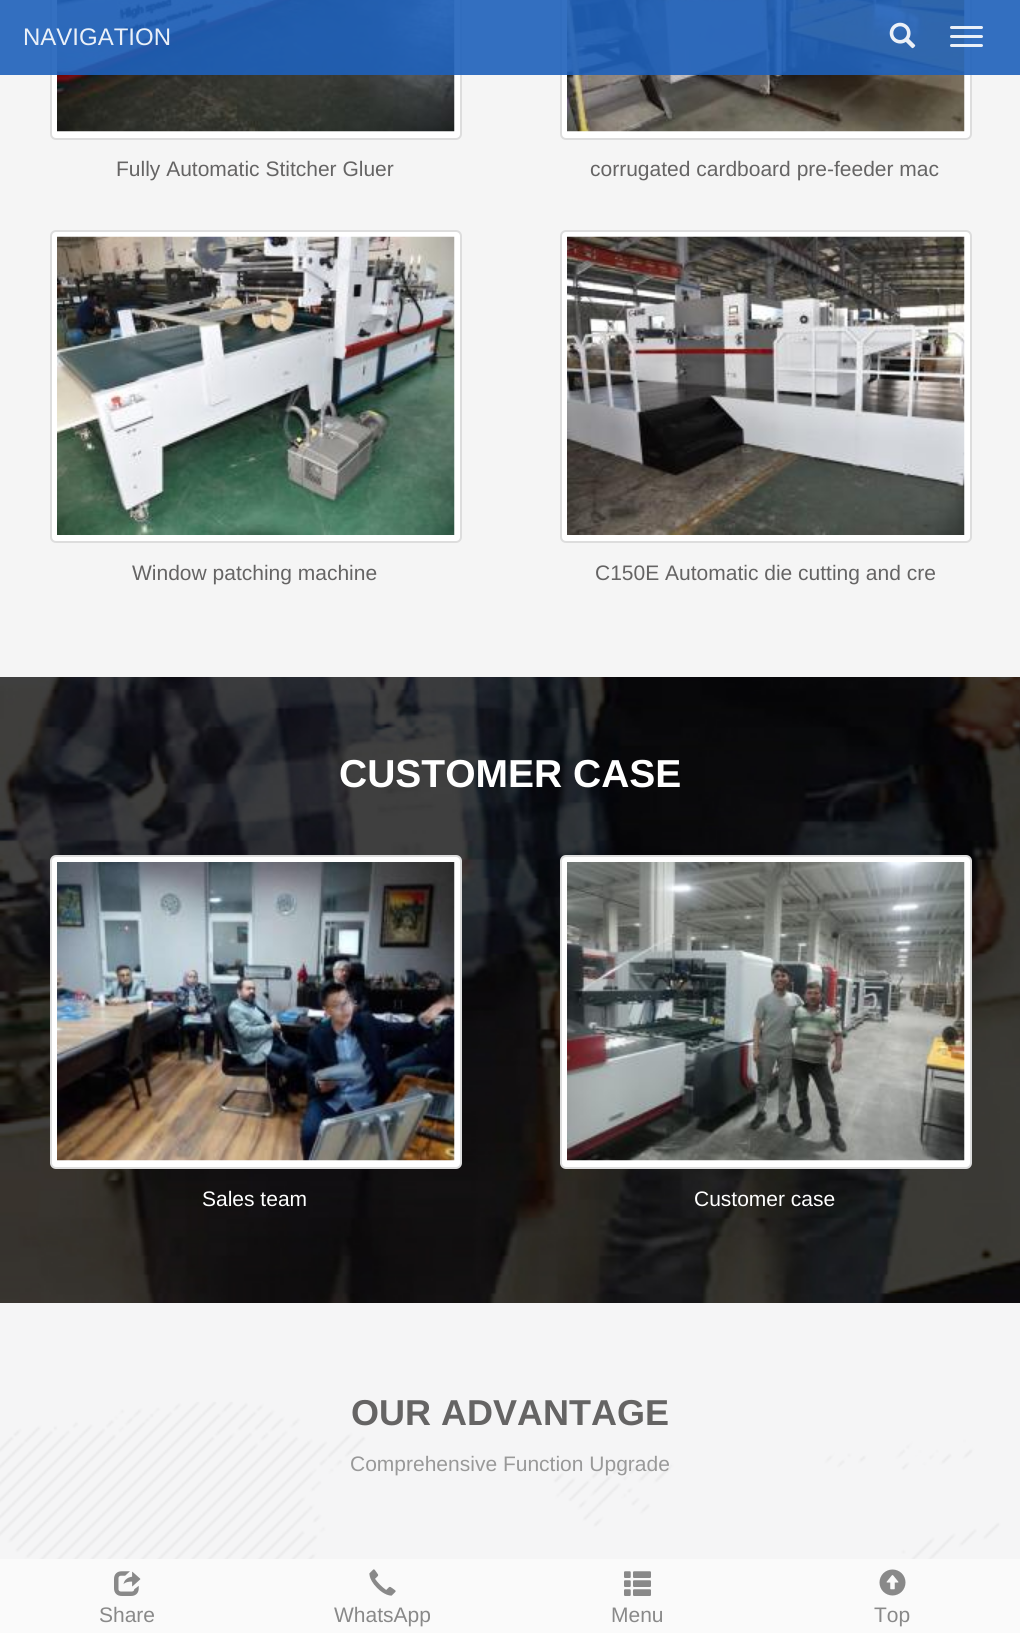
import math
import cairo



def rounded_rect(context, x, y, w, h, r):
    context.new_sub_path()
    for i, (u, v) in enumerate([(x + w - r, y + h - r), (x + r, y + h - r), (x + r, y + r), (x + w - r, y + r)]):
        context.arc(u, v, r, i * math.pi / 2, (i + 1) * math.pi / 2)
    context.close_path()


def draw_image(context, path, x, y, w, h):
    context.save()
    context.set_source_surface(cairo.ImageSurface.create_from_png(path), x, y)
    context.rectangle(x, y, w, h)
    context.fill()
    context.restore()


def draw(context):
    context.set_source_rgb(245 / 255, 245 / 255, 245 / 255)
    context.paint()
    context.set_source_rgb(1, 1, 1)
    rounded_rect(context, 51, -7, 410, 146, 5)
    context.fill_preserve()
    context.set_source_rgb(221 / 255, 221 / 255, 221 / 255)
    context.stroke()
    draw_image(context, "images/2.png", 57, 0, 398, 132)
    context.set_source_rgb(1, 1, 1)
    rounded_rect(context, 561, -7, 410, 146, 5)
    context.fill_preserve()
    context.set_source_rgb(221 / 255, 221 / 255, 221 / 255)
    context.stroke()
    draw_image(context, "images/3.png", 567, 0, 398, 132)
    context.set_source_rgba(30 / 255, 97 / 255, 186 / 255, 0.9)
    context.rectangle(0, 0, 1020, 75)
    context.fill()
    draw_image(context, "images/1.png", 889, 22, 27, 27)
    context.set_source_rgba(1, 1, 1, 0.9)
    rounded_rect(context, 950, 26, 33, 3, 1.5)
    context.fill()
    rounded_rect(context, 950, 35, 33, 3, 1.5)
    context.fill()
    rounded_rect(context, 950, 44, 33, 3, 1.5)
    context.fill()
    context.set_source_rgb(1, 1, 1)
    rounded_rect(context, 51, 231, 410, 311, 5)
    context.fill_preserve()
    context.set_source_rgb(221 / 255, 221 / 255, 221 / 255)
    context.stroke()
    draw_image(context, "images/4.png", 57, 236, 398, 299)
    context.set_source_rgb(1, 1, 1)
    rounded_rect(context, 561, 231, 410, 311, 5)
    context.fill_preserve()
    context.set_source_rgb(221 / 255, 221 / 255, 221 / 255)
    context.stroke()
    draw_image(context, "images/5.png", 567, 236, 398, 299)
    draw_image(context, "images/6.png", 0, 677, 1020, 626)
    context.set_source_rgb(1, 1, 1)
    rounded_rect(context, 51, 856, 410, 312, 5)
    context.fill_preserve()
    context.set_source_rgb(221 / 255, 221 / 255, 221 / 255)
    context.stroke()
    draw_image(context, "images/7.png", 57, 862, 398, 299)
    context.set_source_rgb(1, 1, 1)
    rounded_rect(context, 561, 856, 410, 312, 5)
    context.fill_preserve()
    context.set_source_rgb(221 / 255, 221 / 255, 221 / 255)
    context.stroke()
    draw_image(context, "images/8.png", 567, 862, 398, 299)
    draw_image(context, "images/9.png", 0, 1303, 1020, 256)
    context.set_source_rgb(250 / 255, 250 / 255, 250 / 255)
    context.rectangle(0, 1559, 1020, 74)
    context.fill()
    draw_image(context, "images/10.png", 114, 1571, 27, 25)
    draw_image(context, "images/11.png", 369, 1569, 27, 27)
    draw_image(context, "images/12.png", 624, 1571, 27, 25)
    draw_image(context, "images/13.png", 879, 1569, 27, 27)
    context.select_font_face("Liberation Sans")
    context.set_font_size(24)
    context.set_source_rgb(234 / 255, 240 / 255, 248 / 255)
    context.move_to(23, 45)
    context.show_text("NAVIGATION")
    context.set_font_size(21)
    context.set_source_rgb(101 / 255, 100 / 255, 100 / 255)
    context.move_to(116, 176)
    context.show_text("Fully Automatic Stitcher Gluer")
    context.move_to(590, 176)
    context.show_text("corrugated cardboard pre-feeder mac")
    context.move_to(132, 580)
    context.show_text("Window patching machine")
    context.move_to(595, 580)
    context.show_text("C150E Automatic die cutting and cre")
    context.select_font_face("Liberation Sans", cairo.FontSlant.NORMAL, cairo.FontWeight.BOLD)
    context.set_font_size(39)
    context.set_source_rgb(1, 1, 1)
    context.move_to(339, 787)
    context.show_text("CUSTOMER CASE")
    context.select_font_face("Liberation Sans")
    context.set_font_size(21)
    context.move_to(202, 1206)
    context.show_text("Sales team")
    context.move_to(694, 1206)
    context.show_text("Customer case")
    context.select_font_face("Liberation Sans", cairo.FontSlant.NORMAL, cairo.FontWeight.BOLD)
    context.set_font_size(36)
    context.set_source_rgb(101 / 255, 100 / 255, 100 / 255)
    context.move_to(351, 1425)
    context.show_text("OUR ADVANTAGE")
    context.select_font_face("Liberation Sans")
    context.set_font_size(21)
    context.set_source_rgb(153 / 255, 153 / 255, 153 / 255)
    context.move_to(350, 1471)
    context.show_text("Comprehensive Function Upgrade")
    context.set_source_rgb(137 / 255, 137 / 255, 137 / 255)
    context.move_to(99, 1622)
    context.show_text("Share")
    context.move_to(334, 1622)
    context.show_text("WhatsApp")
    context.move_to(611, 1622)
    context.show_text("Menu")
    context.move_to(874, 1622)
    context.show_text("Top")


surface = cairo.ImageSurface(cairo.Format.RGB24, 1020, 1633)
context = cairo.Context(surface)
options = cairo.FontOptions()
options.set_hint_metrics(cairo.HintMetrics.OFF)
options.set_hint_style(cairo.HintStyle.NONE)
context.set_font_options(options)
context.set_miter_limit(4)
draw(context)
surface.write_to_png("out.png")
